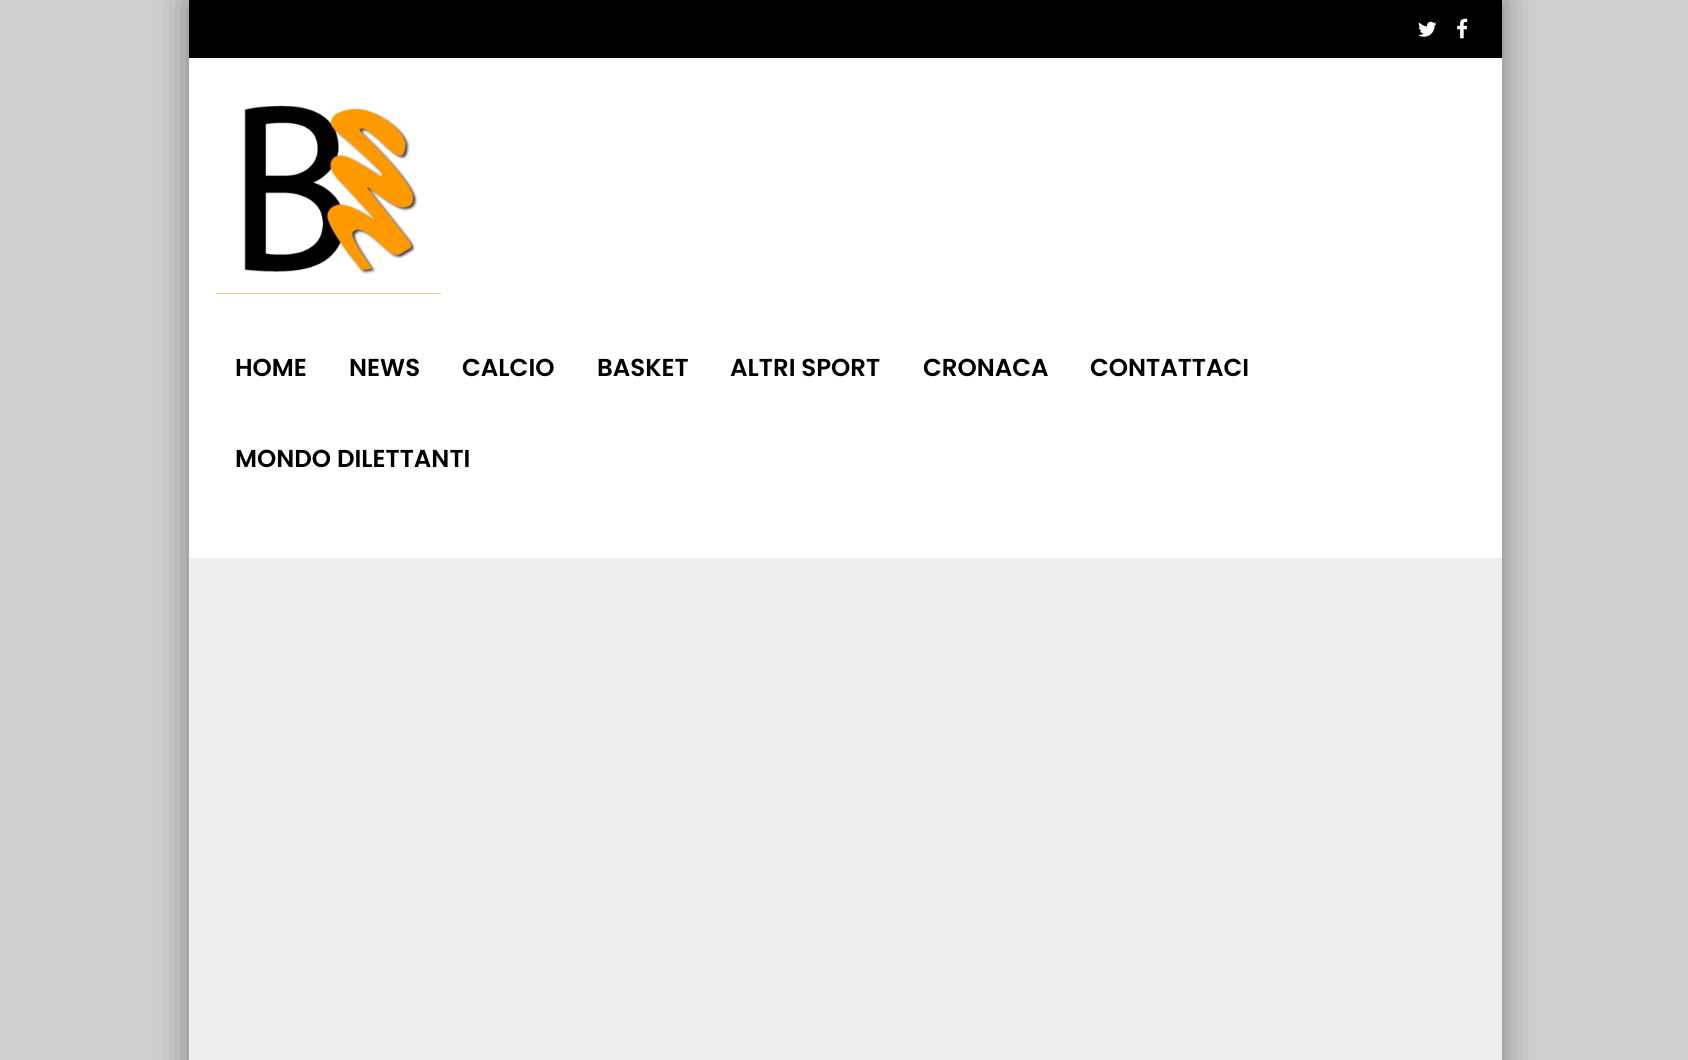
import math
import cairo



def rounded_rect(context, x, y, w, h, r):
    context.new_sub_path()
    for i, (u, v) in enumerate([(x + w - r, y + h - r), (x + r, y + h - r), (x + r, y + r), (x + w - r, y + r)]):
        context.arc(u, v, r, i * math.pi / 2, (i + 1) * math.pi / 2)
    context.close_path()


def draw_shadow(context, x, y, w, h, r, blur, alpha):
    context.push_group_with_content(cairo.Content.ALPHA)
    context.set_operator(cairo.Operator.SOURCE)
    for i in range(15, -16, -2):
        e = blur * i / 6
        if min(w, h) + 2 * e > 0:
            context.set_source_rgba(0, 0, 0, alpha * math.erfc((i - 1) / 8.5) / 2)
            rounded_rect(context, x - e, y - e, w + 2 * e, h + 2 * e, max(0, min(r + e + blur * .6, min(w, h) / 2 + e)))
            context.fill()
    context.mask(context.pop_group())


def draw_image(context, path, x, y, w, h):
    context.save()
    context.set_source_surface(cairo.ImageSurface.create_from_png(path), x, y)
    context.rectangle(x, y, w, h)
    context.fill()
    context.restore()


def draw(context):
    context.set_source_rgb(207 / 255, 207 / 255, 207 / 255)
    context.paint()
    context.set_source_rgb(0, 0, 0)
    draw_shadow(context, 189, 0, 1313, 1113, 0, 17.5, 0.4)
    context.set_source_rgb(238 / 255, 238 / 255, 238 / 255)
    context.rectangle(189, 558, 1313, 502)
    context.fill()
    context.set_source_rgb(0, 0, 0)
    context.rectangle(189, 0, 1313, 58)
    context.fill()
    draw_image(context, "images/1.png", 1418, 21, 19, 16)
    draw_image(context, "images/2.png", 1457, 18, 11, 21)
    context.set_source_rgb(1, 1, 1)
    context.rectangle(189, 58, 1313, 500)
    context.fill()
    draw_image(context, "images/3.png", 215, 105, 226, 189)
    context.select_font_face("Poppins SemiBold")
    context.set_font_size(24.5)
    context.set_source_rgb(0, 0, 0)
    context.move_to(235, 376)
    context.show_text("HOME")
    context.move_to(349, 376)
    context.show_text("NEWS")
    context.move_to(462, 376)
    context.show_text("CALCIO")
    context.move_to(597, 376)
    context.show_text("BASKET")
    context.move_to(730, 376)
    context.show_text("ALTRI SPORT")
    context.move_to(923, 376)
    context.show_text("CRONACA")
    context.move_to(1090, 376)
    context.show_text("CONTATTACI")
    context.move_to(235, 467)
    context.show_text("MONDO DILETTANTI")


surface = cairo.ImageSurface(cairo.Format.RGB24, 1688, 1060)
context = cairo.Context(surface)
options = cairo.FontOptions()
options.set_hint_metrics(cairo.HintMetrics.OFF)
options.set_hint_style(cairo.HintStyle.NONE)
context.set_font_options(options)
context.set_miter_limit(4)
draw(context)
surface.write_to_png("out.png")
